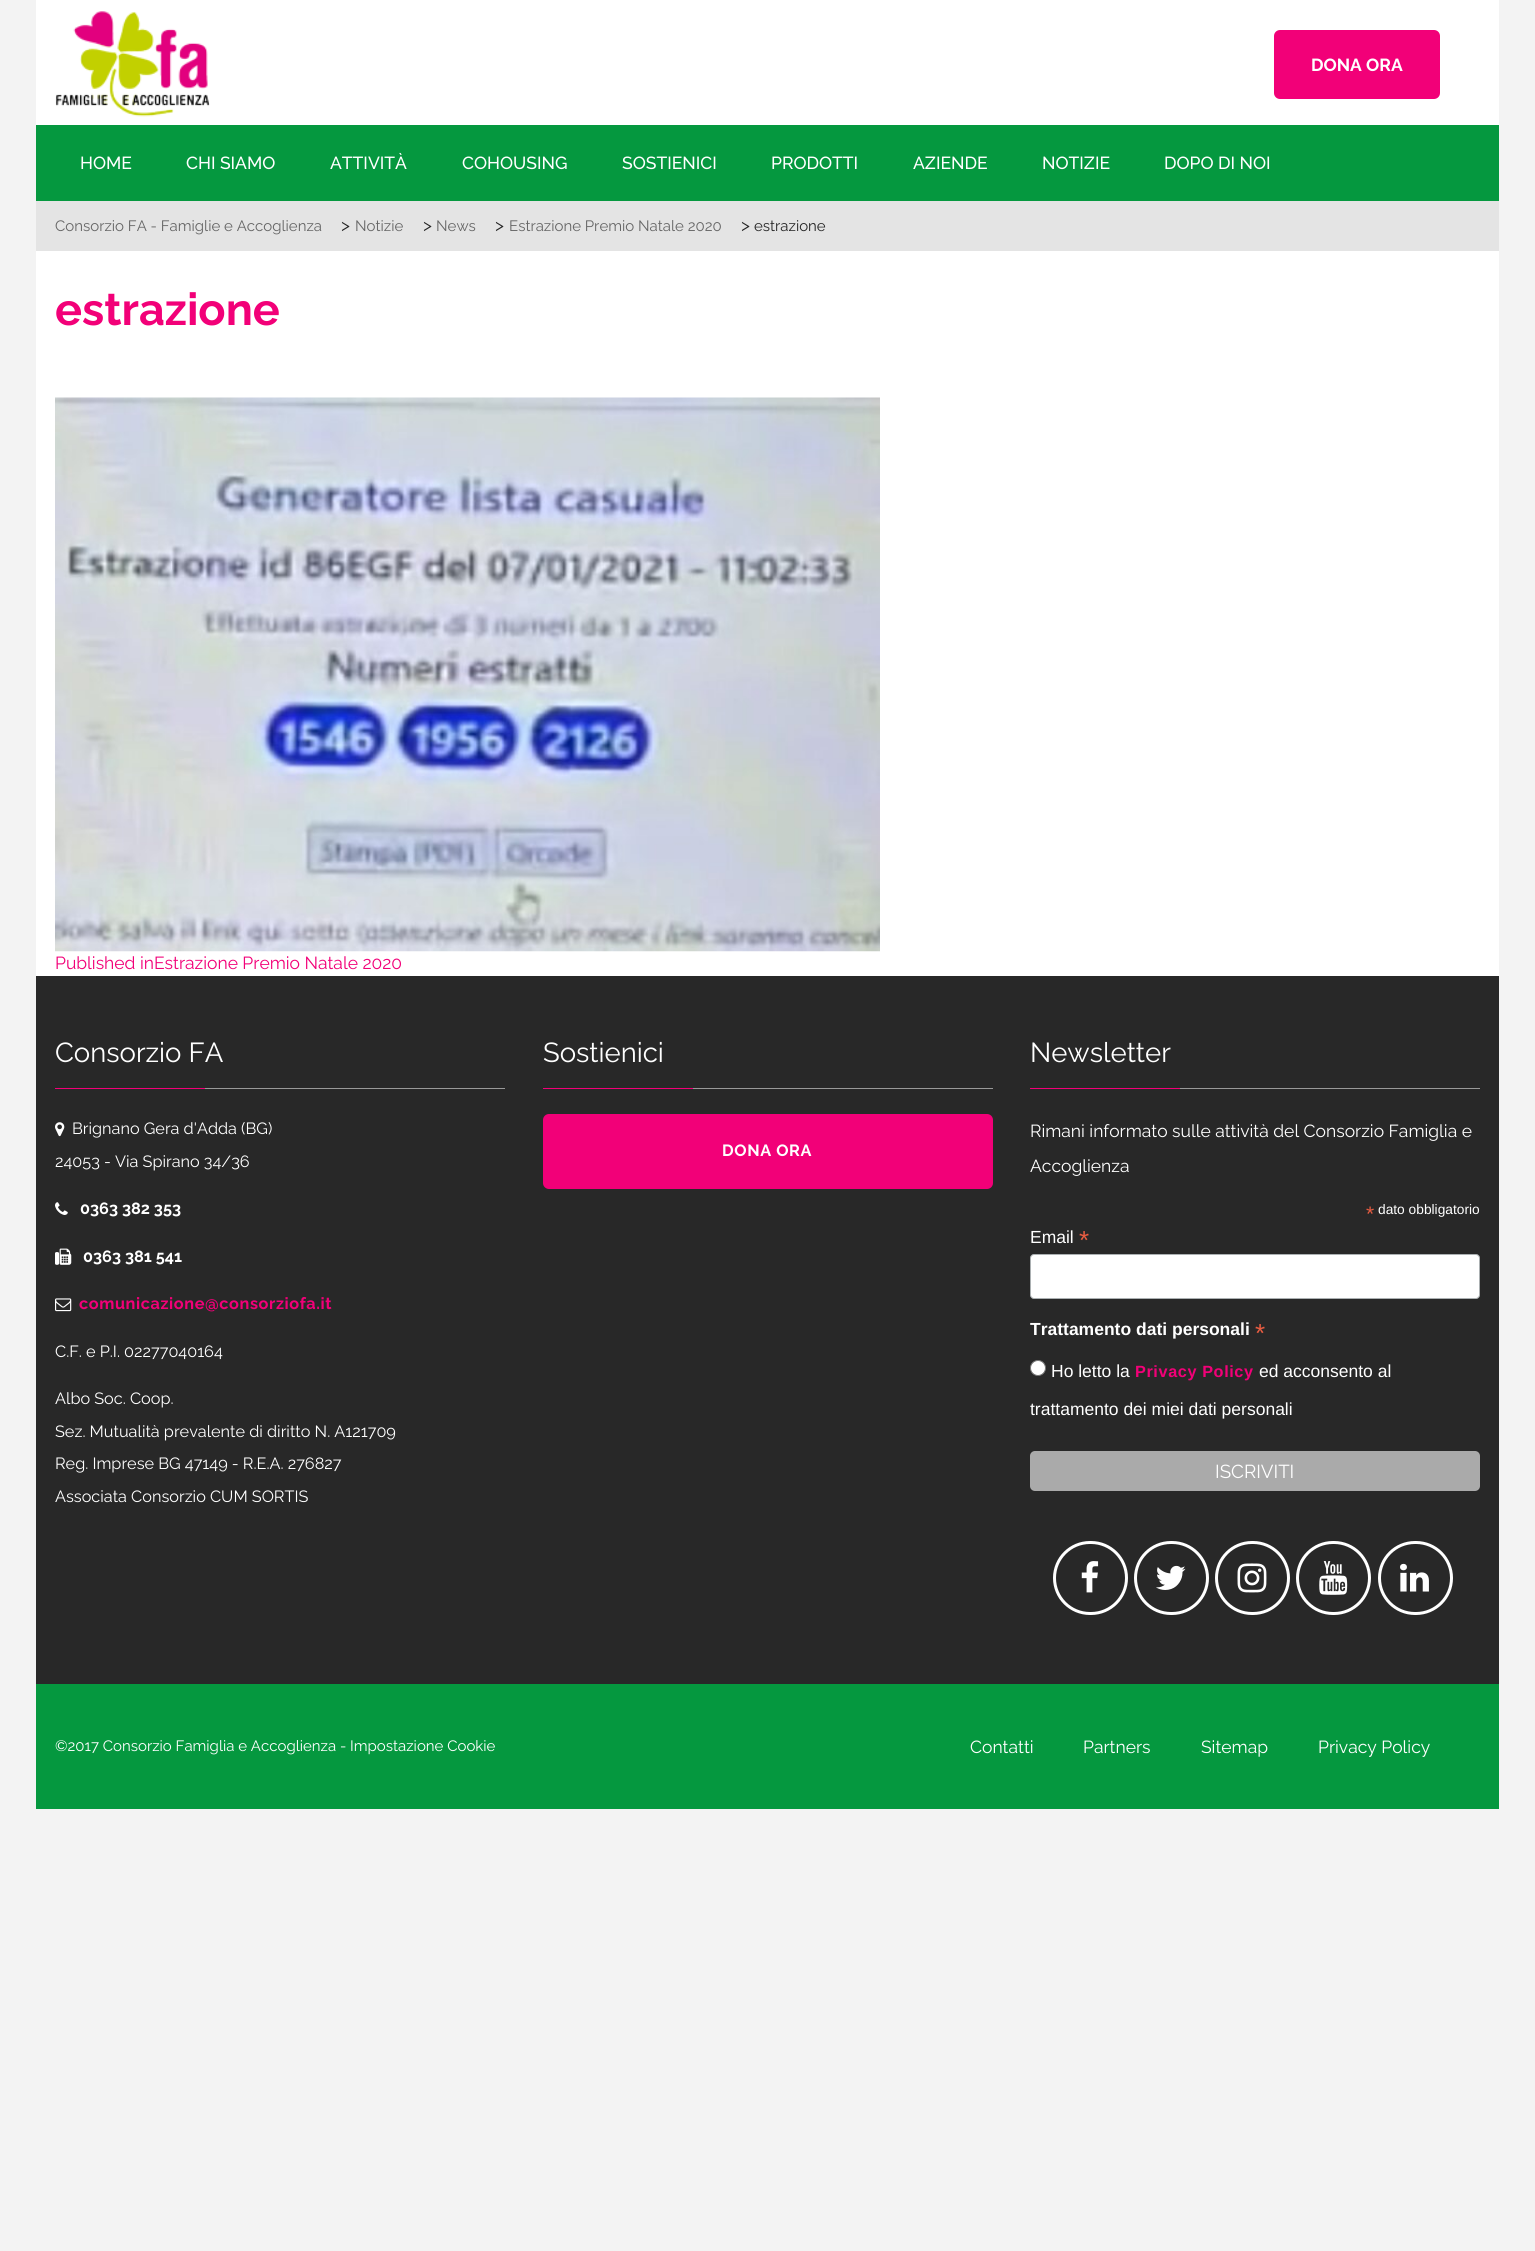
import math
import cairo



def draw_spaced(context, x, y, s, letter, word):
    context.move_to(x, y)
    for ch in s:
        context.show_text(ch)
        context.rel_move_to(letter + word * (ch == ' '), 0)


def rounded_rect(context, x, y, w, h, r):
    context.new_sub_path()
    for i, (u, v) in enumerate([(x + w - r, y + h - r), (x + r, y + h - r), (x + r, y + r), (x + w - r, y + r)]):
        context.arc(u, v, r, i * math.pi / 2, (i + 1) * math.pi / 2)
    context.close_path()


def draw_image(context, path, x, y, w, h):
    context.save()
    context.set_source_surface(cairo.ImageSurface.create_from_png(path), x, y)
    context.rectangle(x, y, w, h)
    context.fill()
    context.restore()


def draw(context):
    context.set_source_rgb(243 / 255, 243 / 255, 243 / 255)
    context.paint()
    context.set_source_rgb(1, 1, 1)
    context.rectangle(36, 0, 1463, 976)
    context.fill()
    draw_image(context, "images/1.png", 55, 11, 155, 106)
    context.set_source_rgb(242 / 255, 0, 120 / 255)
    rounded_rect(context, 1274, 30, 166, 69, 6)
    context.fill()
    context.set_source_rgb(5 / 255, 152 / 255, 63 / 255)
    context.rectangle(36, 125, 1463, 76)
    context.fill()
    context.set_source_rgb(228 / 255, 228 / 255, 228 / 255)
    context.rectangle(36, 201, 1463, 50)
    context.fill()
    draw_image(context, "images/2.png", 55, 397, 825, 555)
    context.set_source_rgb(40 / 255, 40 / 255, 40 / 255)
    context.rectangle(36, 976, 1463, 708)
    context.fill()
    context.set_source_rgb(153 / 255, 153 / 255, 153 / 255)
    context.rectangle(205, 1088, 300, 1)
    context.fill()
    context.set_source_rgb(242 / 255, 0, 120 / 255)
    context.rectangle(55, 1088, 150, 1)
    context.fill()
    draw_image(context, "images/3.png", 55, 1122, 10, 15)
    draw_image(context, "images/4.png", 55, 1202, 13, 13)
    draw_image(context, "images/5.png", 55, 1248, 17, 17)
    draw_image(context, "images/6.png", 55, 1298, 17, 14)
    context.set_source_rgb(153 / 255, 153 / 255, 153 / 255)
    context.rectangle(693, 1088, 300, 1)
    context.fill()
    context.set_source_rgb(242 / 255, 0, 120 / 255)
    context.rectangle(543, 1088, 150, 1)
    context.fill()
    rounded_rect(context, 543, 1114, 450, 75, 6)
    context.fill()
    context.set_source_rgb(153 / 255, 153 / 255, 153 / 255)
    context.rectangle(1180, 1088, 300, 1)
    context.fill()
    context.set_source_rgb(242 / 255, 0, 120 / 255)
    context.rectangle(1030, 1088, 150, 1)
    context.fill()
    context.set_source_rgb(1, 1, 1)
    rounded_rect(context, 1030.5, 1254.5, 449, 44, 3.5)
    context.fill_preserve()
    context.set_source_rgb(171 / 255, 176 / 255, 178 / 255)
    context.set_line_width(1)
    context.stroke()
    context.set_source_rgb(1, 1, 1)
    context.arc(1038, 1368, 7.5, 0, 2 * math.pi)
    context.fill_preserve()
    context.set_source_rgb(118 / 255, 118 / 255, 118 / 255)
    context.stroke()
    context.set_source_rgb(170 / 255, 170 / 255, 170 / 255)
    rounded_rect(context, 1030, 1451, 450, 40, 5)
    context.fill()
    rounded_rect(context, 1054.5, 1542.5, 72, 71, 35.5)
    context.set_source_rgb(1, 1, 1)
    context.set_line_width(3)
    context.stroke()
    draw_image(context, "images/7.png", 1081, 1561, 18, 32)
    rounded_rect(context, 1135.5, 1542.5, 72, 71, 35.5)
    context.stroke()
    draw_image(context, "images/8.png", 1156, 1565, 30, 25)
    rounded_rect(context, 1216.5, 1542.5, 72, 71, 35.5)
    context.stroke()
    draw_image(context, "images/9.png", 1237, 1563, 30, 30)
    rounded_rect(context, 1297.5, 1542.5, 72, 71, 35.5)
    context.stroke()
    draw_image(context, "images/10.png", 1319, 1561, 29, 34)
    rounded_rect(context, 1379.5, 1542.5, 72, 71, 35.5)
    context.stroke()
    draw_image(context, "images/11.png", 1400, 1563, 29, 29)
    context.set_source_rgb(5 / 255, 152 / 255, 63 / 255)
    context.rectangle(36, 1684, 1463, 125)
    context.fill()
    context.select_font_face("Raleway", cairo.FontSlant.NORMAL, cairo.FontWeight.BOLD)
    context.set_font_size(17.5)
    context.set_source_rgb(1, 1, 1)
    context.move_to(1311, 71)
    context.show_text("DONA ORA")
    context.select_font_face("Raleway Medium")
    context.move_to(80, 169)
    context.show_text("HOME")
    context.move_to(186, 169)
    context.show_text("CHI SIAMO")
    context.move_to(330, 169)
    context.show_text("ATTIVITÀ")
    context.move_to(462, 169)
    context.show_text("COHOUSING")
    context.move_to(622, 169)
    context.show_text("SOSTIENICI")
    context.move_to(771, 169)
    context.show_text("PRODOTTI")
    context.move_to(913, 169)
    context.show_text("AZIENDE")
    context.move_to(1042, 169)
    context.show_text("NOTIZIE")
    context.move_to(1164, 169)
    context.show_text("DOPO DI NOI")
    context.select_font_face("Raleway")
    context.set_font_size(15)
    context.set_source_rgb(102 / 255, 102 / 255, 102 / 255)
    context.move_to(55, 231)
    context.show_text("Consorzio FA - Famiglie e Accoglienza")
    context.set_font_size(17.5)
    context.set_source_rgb(37 / 255, 37 / 255, 37 / 255)
    context.move_to(341, 231)
    context.show_text(">")
    context.set_font_size(15)
    context.set_source_rgb(102 / 255, 102 / 255, 102 / 255)
    context.move_to(355, 231)
    context.show_text("Notizie")
    context.set_font_size(17.5)
    context.set_source_rgb(37 / 255, 37 / 255, 37 / 255)
    context.move_to(423, 231)
    context.show_text(">")
    context.set_font_size(15)
    context.set_source_rgb(102 / 255, 102 / 255, 102 / 255)
    context.move_to(436, 231)
    context.show_text("News")
    context.set_font_size(17.5)
    context.set_source_rgb(37 / 255, 37 / 255, 37 / 255)
    context.move_to(495, 231)
    context.show_text(">")
    context.set_font_size(15)
    context.set_source_rgb(102 / 255, 102 / 255, 102 / 255)
    context.move_to(509, 231)
    context.show_text("Estrazione Premio Natale 2020")
    context.set_font_size(17.5)
    context.set_source_rgb(37 / 255, 37 / 255, 37 / 255)
    context.move_to(741, 231)
    context.show_text(">")
    context.set_font_size(15)
    context.move_to(754, 231)
    context.show_text("estrazione")
    context.select_font_face("Raleway", cairo.FontSlant.NORMAL, cairo.FontWeight.BOLD)
    context.set_font_size(45)
    context.set_source_rgb(242 / 255, 0, 120 / 255)
    context.move_to(55, 325)
    context.show_text("estrazione")
    context.select_font_face("Raleway")
    context.set_font_size(17.5)
    context.move_to(55, 969)
    context.show_text("Published inEstrazione Premio Natale 2020")
    context.set_font_size(27.5)
    context.set_source_rgb(1, 1, 1)
    context.move_to(55, 1062)
    context.show_text("Consorzio FA")
    context.set_font_size(16.25)
    context.move_to(72, 1134)
    context.show_text("Brignano Gera d'Adda (BG)")
    context.move_to(55, 1167)
    context.show_text("24053 - Via Spirano 34/36")
    context.select_font_face("Raleway", cairo.FontSlant.NORMAL, cairo.FontWeight.BOLD)
    context.move_to(80, 1214)
    context.show_text("0363 382 353")
    context.move_to(83, 1262)
    context.show_text("0363 381 541")
    context.set_source_rgb(242 / 255, 0, 120 / 255)
    draw_spaced(context, 79, 1309, "comunicazione@consorziofa.it", 0.6, 0)
    context.select_font_face("Raleway")
    context.set_source_rgb(1, 1, 1)
    context.move_to(55, 1357)
    context.show_text("C.F. e P.I. 02277040164")
    context.move_to(55, 1404)
    context.show_text("Albo Soc. Coop.")
    context.move_to(55, 1437)
    context.show_text("Sez. Mutualità prevalente di diritto N. A121709")
    context.move_to(55, 1469)
    context.show_text("Reg. Imprese BG 47149 - R.E.A. 276827")
    context.move_to(55, 1502)
    context.show_text("Associata Consorzio CUM SORTIS")
    context.set_font_size(27.5)
    context.move_to(543, 1062)
    context.show_text("Sostienici")
    context.select_font_face("Raleway", cairo.FontSlant.NORMAL, cairo.FontWeight.BOLD)
    context.set_font_size(16.25)
    draw_spaced(context, 722, 1156, "DONA ORA", 0.6, 0)
    context.select_font_face("Raleway")
    context.set_font_size(27.5)
    context.move_to(1030, 1062)
    context.show_text("Newsletter")
    context.set_font_size(17.5)
    context.move_to(1030, 1137)
    context.show_text("Rimani informato sulle attività del Consorzio Famiglia e")
    context.move_to(1030, 1172)
    context.show_text("Accoglienza")
    context.select_font_face("Liberation Sans")
    context.set_font_size(21)
    context.set_source_rgb(232 / 255, 92 / 255, 65 / 255)
    context.move_to(1366, 1221)
    context.show_text("*")
    context.set_font_size(13.75)
    context.set_source_rgb(1, 1, 1)
    context.move_to(1378, 1214)
    context.show_text("dato obbligatorio")
    context.set_font_size(17.5)
    context.move_to(1030, 1243)
    context.show_text("Email")
    context.set_font_size(26)
    context.set_source_rgb(232 / 255, 92 / 255, 65 / 255)
    context.move_to(1079, 1249)
    context.show_text("*")
    context.select_font_face("Liberation Sans", cairo.FontSlant.NORMAL, cairo.FontWeight.BOLD)
    context.set_font_size(17.5)
    context.set_source_rgb(1, 1, 1)
    context.move_to(1030, 1335)
    context.show_text("Trattamento dati personali")
    context.select_font_face("Liberation Sans")
    context.set_font_size(26)
    context.set_source_rgb(232 / 255, 92 / 255, 65 / 255)
    context.move_to(1255, 1342)
    context.show_text("*")
    context.set_font_size(17.5)
    context.set_source_rgb(1, 1, 1)
    context.move_to(1051, 1377)
    context.show_text("Ho letto la")
    context.select_font_face("Liberation Sans", cairo.FontSlant.NORMAL, cairo.FontWeight.BOLD)
    context.set_font_size(16.25)
    context.set_source_rgb(242 / 255, 0, 120 / 255)
    draw_spaced(context, 1135, 1377, "Privacy Policy", 0.6, 0)
    context.select_font_face("Liberation Sans")
    context.set_font_size(17.5)
    context.set_source_rgb(1, 1, 1)
    context.move_to(1259, 1377)
    context.show_text("ed acconsento al")
    context.move_to(1030, 1415)
    context.show_text("trattamento dei miei dati personali")
    context.select_font_face("Raleway")
    context.set_font_size(18.75)
    context.move_to(1215, 1478)
    context.show_text("ISCRIVITI")
    context.set_font_size(15)
    context.move_to(55, 1751)
    context.show_text("©2017 Consorzio Famiglia e Accoglienza - Impostazione Cookie")
    context.set_font_size(17.5)
    context.move_to(970, 1753)
    context.show_text("Contatti")
    context.move_to(1083, 1753)
    context.show_text("Partners")
    context.move_to(1201, 1753)
    context.show_text("Sitemap")
    context.move_to(1318, 1753)
    context.show_text("Privacy Policy")


surface = cairo.ImageSurface(cairo.Format.RGB24, 1535, 2251)
context = cairo.Context(surface)
options = cairo.FontOptions()
options.set_hint_metrics(cairo.HintMetrics.OFF)
options.set_hint_style(cairo.HintStyle.NONE)
context.set_font_options(options)
context.set_miter_limit(4)
draw(context)
surface.write_to_png("out.png")
